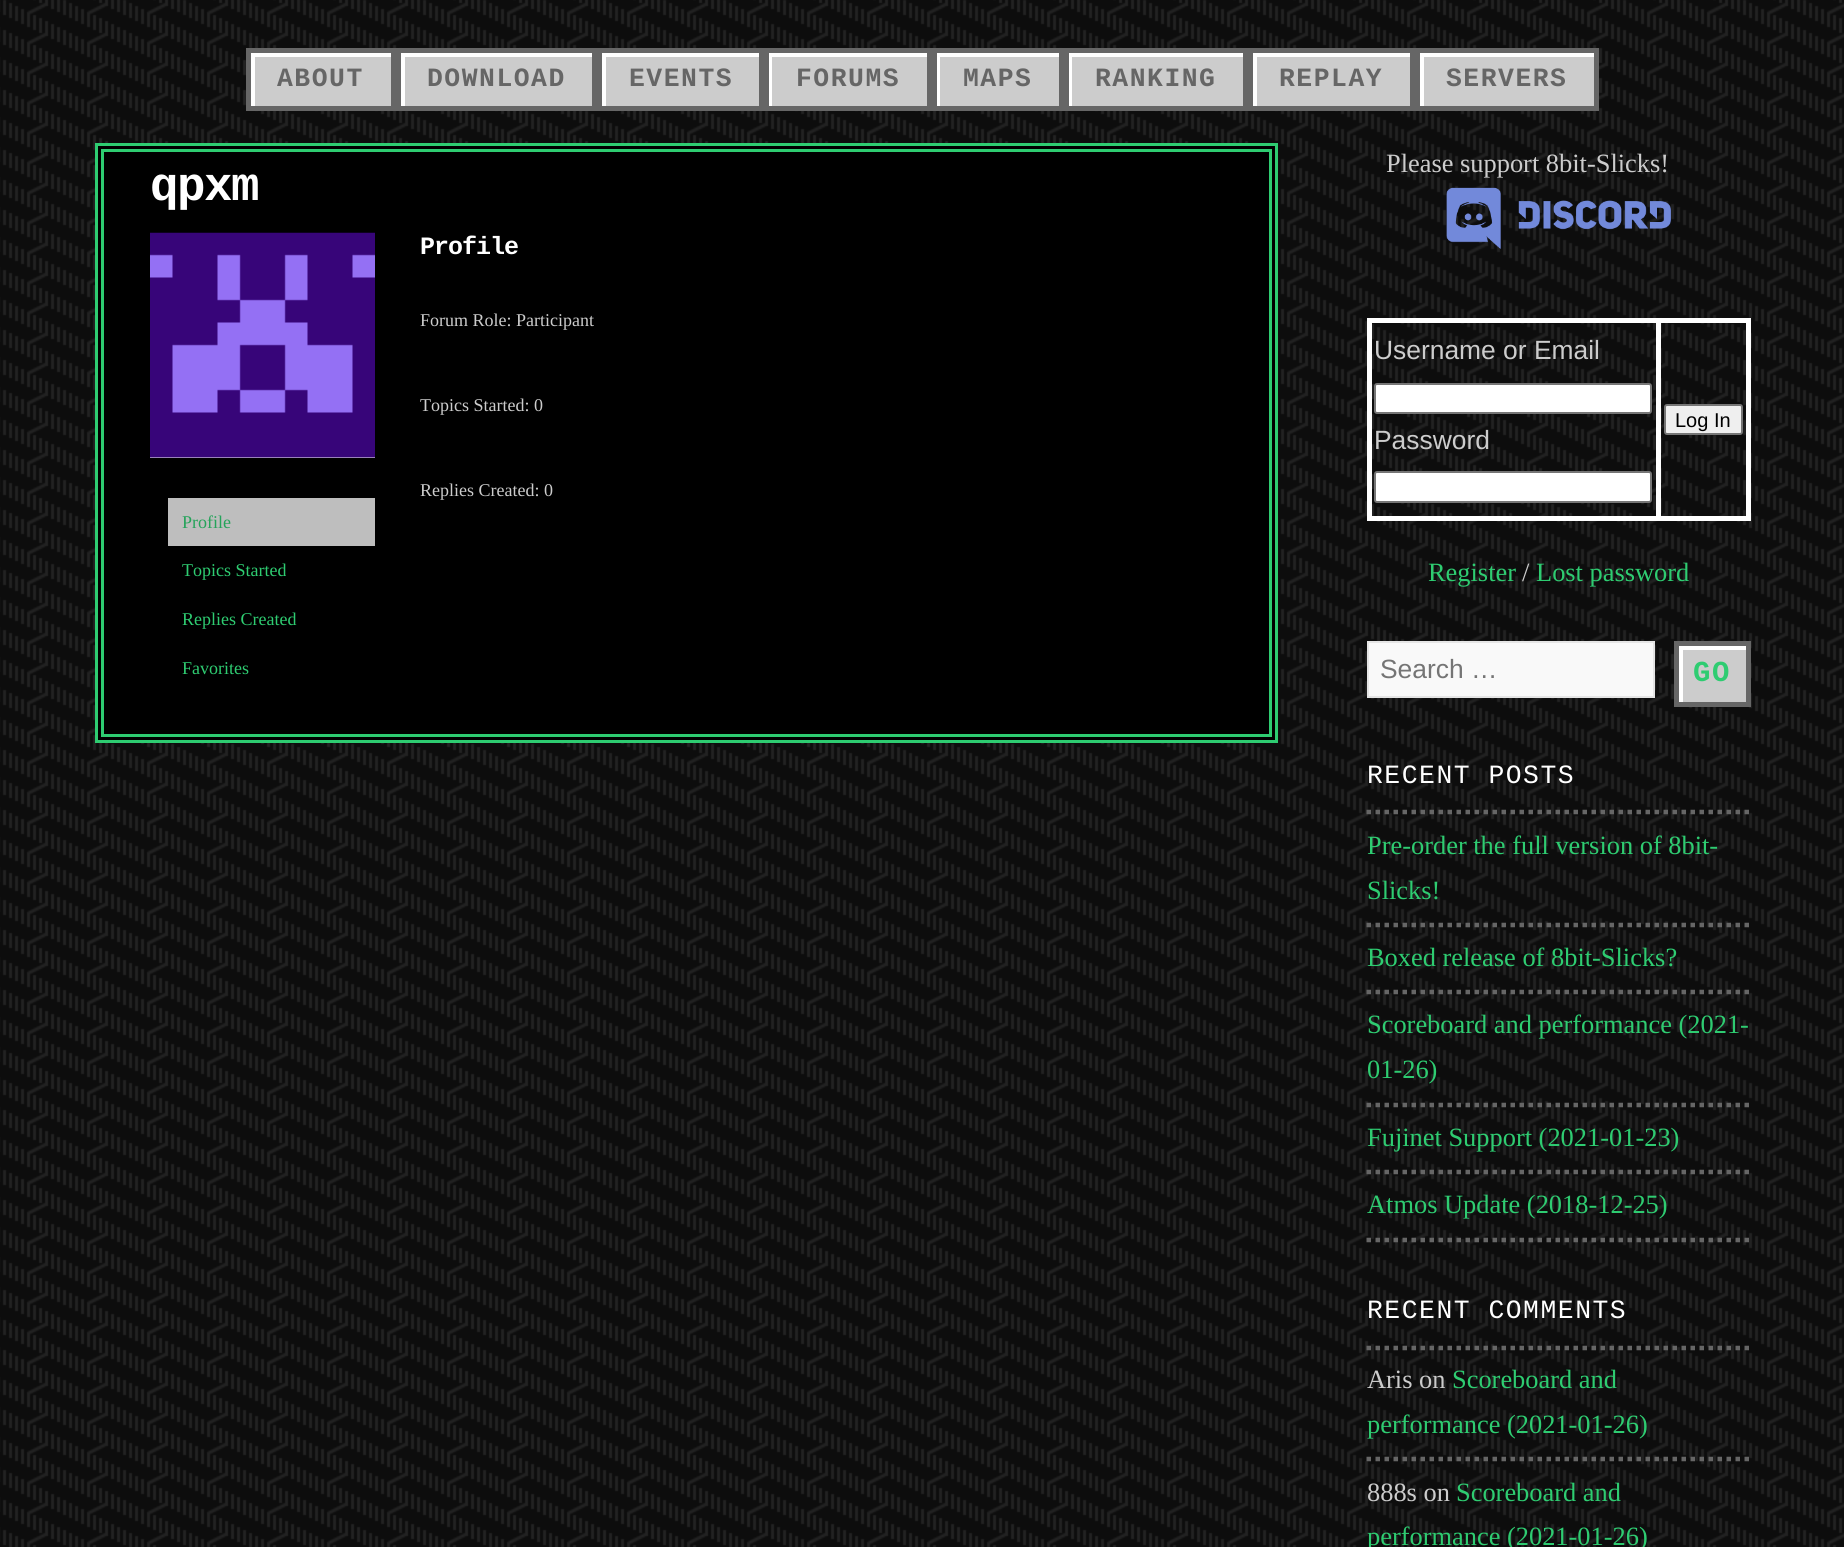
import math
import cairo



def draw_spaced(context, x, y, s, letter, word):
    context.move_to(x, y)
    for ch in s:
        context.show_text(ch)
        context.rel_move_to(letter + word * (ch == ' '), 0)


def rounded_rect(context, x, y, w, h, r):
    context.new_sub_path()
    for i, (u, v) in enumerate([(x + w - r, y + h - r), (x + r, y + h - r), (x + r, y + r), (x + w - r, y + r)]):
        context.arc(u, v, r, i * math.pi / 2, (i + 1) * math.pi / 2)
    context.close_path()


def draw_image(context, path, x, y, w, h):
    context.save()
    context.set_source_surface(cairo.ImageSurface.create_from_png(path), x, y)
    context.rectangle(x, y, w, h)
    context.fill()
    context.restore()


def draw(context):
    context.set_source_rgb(1, 1, 1)
    context.paint()
    draw_image(context, "images/1.png", 0, 0, 1844, 1547)
    context.set_source_rgb(204 / 255, 204 / 255, 204 / 255)
    context.rectangle(255, 57, 136, 49)
    context.fill()
    context.save()
    context.rectangle(251, 53, 141, 54)
    context.clip()
    context.set_source_rgb(1, 1, 1)
    context.set_fill_rule(cairo.FillRule.EVEN_ODD)
    context.new_path()
    context.move_to(102, -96)
    context.line_to(540, -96)
    context.line_to(540, 255)
    context.line_to(102, 255)
    context.close_path()
    context.move_to(255, 57)
    context.line_to(396, 57)
    context.line_to(396, 111)
    context.line_to(255, 111)
    context.close_path()
    context.fill()
    context.restore()
    context.rectangle(248.5, 50.5, 145, 58)
    context.set_source_rgb(102 / 255, 102 / 255, 102 / 255)
    context.set_line_width(5)
    context.stroke()
    context.set_source_rgb(204 / 255, 204 / 255, 204 / 255)
    context.rectangle(405, 57, 187, 49)
    context.fill()
    context.save()
    context.rectangle(401, 53, 192, 54)
    context.clip()
    context.set_source_rgb(1, 1, 1)
    context.set_fill_rule(cairo.FillRule.EVEN_ODD)
    context.new_path()
    context.move_to(252, -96)
    context.line_to(741, -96)
    context.line_to(741, 255)
    context.line_to(252, 255)
    context.close_path()
    context.move_to(405, 57)
    context.line_to(597, 57)
    context.line_to(597, 111)
    context.line_to(405, 111)
    context.close_path()
    context.fill()
    context.restore()
    context.rectangle(398.5, 50.5, 196, 58)
    context.set_source_rgb(102 / 255, 102 / 255, 102 / 255)
    context.stroke()
    context.set_source_rgb(204 / 255, 204 / 255, 204 / 255)
    context.rectangle(606, 57, 153, 49)
    context.fill()
    context.save()
    context.rectangle(602, 53, 157, 54)
    context.clip()
    context.set_source_rgb(1, 1, 1)
    context.set_fill_rule(cairo.FillRule.EVEN_ODD)
    context.new_path()
    context.move_to(453, -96)
    context.line_to(908, -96)
    context.line_to(908, 255)
    context.line_to(453, 255)
    context.close_path()
    context.move_to(606, 57)
    context.line_to(764, 57)
    context.line_to(764, 111)
    context.line_to(606, 111)
    context.close_path()
    context.fill()
    context.restore()
    context.rectangle(599.5, 50.5, 162, 58)
    context.set_source_rgb(102 / 255, 102 / 255, 102 / 255)
    context.stroke()
    context.set_source_rgb(204 / 255, 204 / 255, 204 / 255)
    context.rectangle(772, 57, 155, 49)
    context.fill()
    context.save()
    context.rectangle(768, 53, 159, 54)
    context.clip()
    context.set_source_rgb(1, 1, 1)
    context.set_fill_rule(cairo.FillRule.EVEN_ODD)
    context.new_path()
    context.move_to(620, -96)
    context.line_to(1076, -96)
    context.line_to(1076, 255)
    context.line_to(620, 255)
    context.close_path()
    context.move_to(772, 57)
    context.line_to(932, 57)
    context.line_to(932, 111)
    context.line_to(772, 111)
    context.close_path()
    context.fill()
    context.restore()
    context.rectangle(766.5, 50.5, 163, 58)
    context.set_source_rgb(102 / 255, 102 / 255, 102 / 255)
    context.stroke()
    context.set_source_rgb(204 / 255, 204 / 255, 204 / 255)
    context.rectangle(940, 57, 119, 49)
    context.fill()
    context.save()
    context.rectangle(936, 53, 123, 54)
    context.clip()
    context.set_source_rgb(1, 1, 1)
    context.set_fill_rule(cairo.FillRule.EVEN_ODD)
    context.new_path()
    context.move_to(788, -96)
    context.line_to(1208, -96)
    context.line_to(1208, 255)
    context.line_to(788, 255)
    context.close_path()
    context.move_to(940, 57)
    context.line_to(1064, 57)
    context.line_to(1064, 111)
    context.line_to(940, 111)
    context.close_path()
    context.fill()
    context.restore()
    context.rectangle(934.5, 50.5, 127, 58)
    context.set_source_rgb(102 / 255, 102 / 255, 102 / 255)
    context.stroke()
    context.set_source_rgb(204 / 255, 204 / 255, 204 / 255)
    context.rectangle(1072, 57, 171, 49)
    context.fill()
    context.save()
    context.rectangle(1068, 53, 176, 54)
    context.clip()
    context.set_source_rgb(1, 1, 1)
    context.set_fill_rule(cairo.FillRule.EVEN_ODD)
    context.new_path()
    context.move_to(920, -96)
    context.line_to(1392, -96)
    context.line_to(1392, 255)
    context.line_to(920, 255)
    context.close_path()
    context.move_to(1072, 57)
    context.line_to(1248, 57)
    context.line_to(1248, 111)
    context.line_to(1072, 111)
    context.close_path()
    context.fill()
    context.restore()
    context.rectangle(1066.5, 50.5, 179, 58)
    context.set_source_rgb(102 / 255, 102 / 255, 102 / 255)
    context.stroke()
    context.set_source_rgb(204 / 255, 204 / 255, 204 / 255)
    context.rectangle(1257, 57, 153, 49)
    context.fill()
    context.save()
    context.rectangle(1253, 53, 157, 54)
    context.clip()
    context.set_source_rgb(1, 1, 1)
    context.set_fill_rule(cairo.FillRule.EVEN_ODD)
    context.new_path()
    context.move_to(1104, -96)
    context.line_to(1558, -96)
    context.line_to(1558, 255)
    context.line_to(1104, 255)
    context.close_path()
    context.move_to(1257, 57)
    context.line_to(1414, 57)
    context.line_to(1414, 111)
    context.line_to(1257, 111)
    context.close_path()
    context.fill()
    context.restore()
    context.rectangle(1250.5, 50.5, 162, 58)
    context.set_source_rgb(102 / 255, 102 / 255, 102 / 255)
    context.stroke()
    context.set_source_rgb(204 / 255, 204 / 255, 204 / 255)
    context.rectangle(1424, 57, 170, 49)
    context.fill()
    context.save()
    context.rectangle(1419, 53, 176, 54)
    context.clip()
    context.set_source_rgb(1, 1, 1)
    context.set_fill_rule(cairo.FillRule.EVEN_ODD)
    context.new_path()
    context.move_to(1270, -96)
    context.line_to(1743, -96)
    context.line_to(1743, 255)
    context.line_to(1270, 255)
    context.close_path()
    context.move_to(1424, 57)
    context.line_to(1599, 57)
    context.line_to(1599, 111)
    context.line_to(1424, 111)
    context.close_path()
    context.fill()
    context.restore()
    context.rectangle(1417.5, 50.5, 179, 58)
    context.set_source_rgb(102 / 255, 102 / 255, 102 / 255)
    context.stroke()
    context.set_source_rgb(0, 0, 0)
    context.rectangle(96.5, 144.5, 1180, 597)
    context.fill_preserve()
    context.set_source_rgb(46 / 255, 204 / 255, 113 / 255)
    context.set_line_width(3)
    context.stroke()
    context.rectangle(102.5, 150.5, 1168, 585)
    context.stroke()
    context.set_source_rgb(1, 1, 1)
    context.rectangle(150, 457, 225, 1)
    context.fill()
    draw_image(context, "images/2.png", 150, 232, 225, 226)
    context.set_source_rgb(190 / 255, 190 / 255, 190 / 255)
    context.rectangle(168, 498, 207, 48)
    context.fill()
    draw_image(context, "images/3.png", 1446, 187, 225, 62)
    context.set_source_rgb(1, 1, 1)
    context.rectangle(1656, 318, 95, 5)
    context.fill()
    context.rectangle(1746, 318, 5, 203)
    context.fill()
    context.rectangle(1656, 516, 95, 5)
    context.fill()
    context.rectangle(1656, 318, 5, 203)
    context.fill()
    context.rectangle(1367, 318, 294, 5)
    context.fill()
    context.rectangle(1367, 516, 294, 5)
    context.fill()
    context.rectangle(1367, 318, 5, 203)
    context.fill()
    rounded_rect(context, 1375, 384, 276, 29, 2)
    context.fill_preserve()
    context.set_source_rgb(118 / 255, 118 / 255, 118 / 255)
    context.set_line_width(2)
    context.stroke()
    context.set_source_rgb(1, 1, 1)
    rounded_rect(context, 1375, 472, 276, 30, 2)
    context.fill_preserve()
    context.set_source_rgb(118 / 255, 118 / 255, 118 / 255)
    context.stroke()
    context.set_source_rgb(239 / 255, 239 / 255, 239 / 255)
    rounded_rect(context, 1665, 405, 77, 29, 2)
    context.fill_preserve()
    context.set_source_rgb(118 / 255, 118 / 255, 118 / 255)
    context.stroke()
    context.set_source_rgb(249 / 255, 249 / 255, 249 / 255)
    context.rectangle(1368, 642, 286, 55)
    context.fill_preserve()
    context.set_source_rgb(229 / 255, 229 / 255, 229 / 255)
    context.stroke()
    context.set_source_rgb(204 / 255, 204 / 255, 204 / 255)
    context.rectangle(1683, 650, 63, 52)
    context.fill()
    context.save()
    context.rectangle(1679, 645, 67, 57)
    context.clip()
    context.set_source_rgb(1, 1, 1)
    context.set_fill_rule(cairo.FillRule.EVEN_ODD)
    context.new_path()
    context.move_to(1530, 496)
    context.line_to(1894, 496)
    context.line_to(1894, 850)
    context.line_to(1530, 850)
    context.close_path()
    context.move_to(1683, 650)
    context.line_to(1750, 650)
    context.line_to(1750, 706)
    context.line_to(1683, 706)
    context.close_path()
    context.fill()
    context.restore()
    context.rectangle(1676.5, 643.5, 72, 61)
    context.set_source_rgb(102 / 255, 102 / 255, 102 / 255)
    context.set_line_width(5)
    context.stroke()
    context.new_path()
    context.move_to(1366.5, 812)
    context.line_to(1750.5, 812)
    context.set_line_width(4.5)
    context.set_dash([4.5, 4.5])
    context.stroke()
    context.new_path()
    context.move_to(1366.5, 925)
    context.line_to(1750.5, 925)
    context.stroke()
    context.new_path()
    context.move_to(1366.5, 992)
    context.line_to(1750.5, 992)
    context.stroke()
    context.new_path()
    context.move_to(1366.5, 1105)
    context.line_to(1750.5, 1105)
    context.stroke()
    context.new_path()
    context.move_to(1366.5, 1172)
    context.line_to(1750.5, 1172)
    context.stroke()
    context.new_path()
    context.move_to(1366.5, 1240)
    context.line_to(1750.5, 1240)
    context.stroke()
    context.new_path()
    context.move_to(1366.5, 1348)
    context.line_to(1750.5, 1348)
    context.stroke()
    context.new_path()
    context.move_to(1366.5, 1459)
    context.line_to(1750.5, 1459)
    context.stroke()
    context.select_font_face("Liberation Mono", cairo.FontSlant.NORMAL, cairo.FontWeight.BOLD)
    context.set_font_size(26.4)
    draw_spaced(context, 277, 86, "ABOUT", 1.5, 0)
    draw_spaced(context, 427, 86, "DOWNLOAD", 1.5, 0)
    draw_spaced(context, 629, 86, "EVENTS", 1.5, 0)
    draw_spaced(context, 796, 86, "FORUMS", 1.5, 0)
    draw_spaced(context, 963, 86, "MAPS", 1.5, 0)
    draw_spaced(context, 1095, 86, "RANKING", 1.5, 0)
    draw_spaced(context, 1279, 86, "REPLAY", 1.5, 0)
    draw_spaced(context, 1446, 86, "SERVERS", 1.5, 0)
    context.set_font_size(47.5)
    context.set_source_rgb(1, 1, 1)
    draw_spaced(context, 150, 200, "qpxm", -1.5, 0)
    context.set_font_size(25)
    draw_spaced(context, 420, 254, "Profile", -1, 0)
    context.select_font_face("Liberation Serif")
    context.set_font_size(18)
    context.set_source_rgb(204 / 255, 204 / 255, 204 / 255)
    context.move_to(420, 326)
    context.show_text("Forum Role: Participant")
    context.move_to(420, 411)
    context.show_text("Topics Started: 0")
    context.move_to(420, 496)
    context.show_text("Replies Created: 0")
    context.set_source_rgb(37 / 255, 163 / 255, 90 / 255)
    context.move_to(182, 528)
    context.show_text("Profile")
    context.set_source_rgb(46 / 255, 204 / 255, 113 / 255)
    context.move_to(182, 576)
    context.show_text("Topics Started")
    context.move_to(182, 625)
    context.show_text("Replies Created")
    context.move_to(182, 674)
    context.show_text("Favorites")
    context.set_font_size(26.4)
    context.set_source_rgb(204 / 255, 204 / 255, 204 / 255)
    context.move_to(1386, 172)
    context.show_text("Please support 8bit-Slicks!")
    context.select_font_face("Liberation Sans")
    context.move_to(1374, 359)
    context.show_text("Username or Email")
    context.move_to(1374, 449)
    context.show_text("Password")
    context.set_font_size(20)
    context.set_source_rgb(0, 0, 0)
    context.move_to(1675, 427)
    context.show_text("Log In")
    context.select_font_face("Liberation Serif")
    context.set_font_size(26.4)
    context.set_source_rgb(46 / 255, 204 / 255, 113 / 255)
    context.move_to(1428, 581)
    context.show_text("Register")
    context.set_source_rgb(204 / 255, 204 / 255, 204 / 255)
    context.move_to(1522, 581)
    context.show_text("/")
    context.set_source_rgb(46 / 255, 204 / 255, 113 / 255)
    context.move_to(1536, 581)
    context.show_text("Lost password")
    context.select_font_face("Liberation Sans")
    context.set_source_rgb(117 / 255, 117 / 255, 117 / 255)
    context.move_to(1380, 678)
    context.show_text("Search …")
    context.select_font_face("Liberation Mono", cairo.FontSlant.NORMAL, cairo.FontWeight.BOLD)
    context.set_font_size(29)
    context.set_source_rgb(46 / 255, 204 / 255, 113 / 255)
    draw_spaced(context, 1693, 681, "GO", 1.5, 0)
    context.select_font_face("Liberation Mono")
    context.set_font_size(26.4)
    context.set_source_rgb(1, 1, 1)
    draw_spaced(context, 1367, 783, "RECENT POSTS", 1.5, 0)
    context.select_font_face("Liberation Serif")
    context.set_source_rgb(46 / 255, 204 / 255, 113 / 255)
    context.move_to(1367, 854)
    context.show_text("Pre-order the full version of 8bit-")
    context.move_to(1367, 899)
    context.show_text("Slicks!")
    context.move_to(1367, 966)
    context.show_text("Boxed release of 8bit-Slicks?")
    context.move_to(1367, 1033)
    context.show_text("Scoreboard and performance (2021-")
    context.move_to(1367, 1078)
    context.show_text("01-26)")
    context.move_to(1367, 1146)
    context.show_text("Fujinet Support (2021-01-23)")
    context.move_to(1367, 1213)
    context.show_text("Atmos Update (2018-12-25)")
    context.select_font_face("Liberation Mono")
    context.set_source_rgb(1, 1, 1)
    draw_spaced(context, 1367, 1318, "RECENT COMMENTS", 1.5, 0)
    context.select_font_face("Liberation Serif")
    context.set_source_rgb(204 / 255, 204 / 255, 204 / 255)
    context.move_to(1367, 1388)
    context.show_text("Aris on")
    context.set_source_rgb(46 / 255, 204 / 255, 113 / 255)
    context.move_to(1452, 1388)
    context.show_text("Scoreboard and")
    context.move_to(1367, 1433)
    context.show_text("performance (2021-01-26)")
    context.set_source_rgb(204 / 255, 204 / 255, 204 / 255)
    context.move_to(1367, 1501)
    context.show_text("888s on")
    context.set_source_rgb(46 / 255, 204 / 255, 113 / 255)
    context.move_to(1456, 1501)
    context.show_text("Scoreboard and")
    context.move_to(1367, 1545)
    context.show_text("performance (2021-01-26)")


surface = cairo.ImageSurface(cairo.Format.RGB24, 1844, 1547)
context = cairo.Context(surface)
options = cairo.FontOptions()
options.set_hint_metrics(cairo.HintMetrics.OFF)
options.set_hint_style(cairo.HintStyle.NONE)
context.set_font_options(options)
context.set_miter_limit(4)
draw(context)
surface.write_to_png("out.png")
